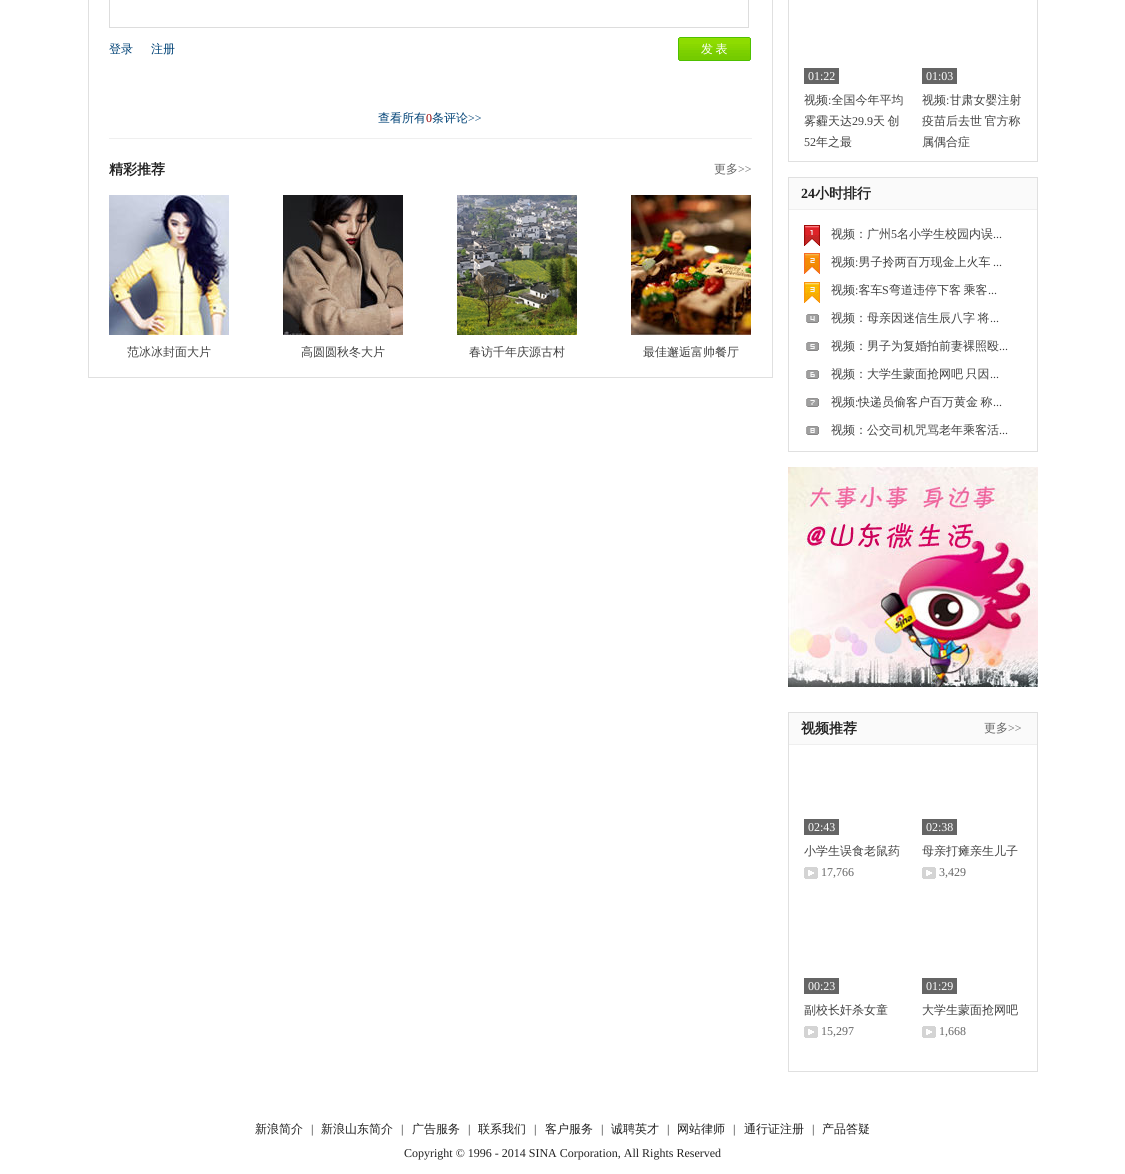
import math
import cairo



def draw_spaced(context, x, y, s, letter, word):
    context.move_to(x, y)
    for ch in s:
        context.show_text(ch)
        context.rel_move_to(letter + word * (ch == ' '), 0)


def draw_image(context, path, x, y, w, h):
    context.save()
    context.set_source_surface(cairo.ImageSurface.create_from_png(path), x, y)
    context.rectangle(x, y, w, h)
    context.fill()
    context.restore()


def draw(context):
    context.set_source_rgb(1, 1, 1)
    context.paint()
    context.set_source_rgb(224 / 255, 224 / 255, 224 / 255)
    context.new_path()
    context.move_to(773, -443)
    context.line_to(773, 378)
    context.line_to(772, 377)
    context.line_to(772, -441)
    context.close_path()
    context.fill()
    context.rectangle(88, 377, 685, 1)
    context.fill()
    context.new_path()
    context.move_to(88, 378)
    context.line_to(88, -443)
    context.line_to(89, -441)
    context.line_to(89, 377)
    context.close_path()
    context.fill()
    context.rectangle(109.5, -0.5, 639, 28)
    context.set_source_rgb(221 / 255, 221 / 255, 221 / 255)
    context.set_line_width(1)
    context.stroke()
    draw_image(context, "images/1.png", 678, 37, 73, 24)
    context.set_source_rgb(239 / 255, 239 / 255, 239 / 255)
    context.rectangle(109, 138, 643, 1)
    context.fill()
    draw_image(context, "images/2.png", 109, 195, 120, 140)
    draw_image(context, "images/3.png", 283, 195, 120, 140)
    draw_image(context, "images/4.png", 457, 195, 120, 140)
    draw_image(context, "images/5.png", 631, 195, 120, 140)
    context.rectangle(788.5, -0.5, 249, 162)
    context.set_source_rgb(224 / 255, 224 / 255, 224 / 255)
    context.stroke()
    context.set_source_rgb(101 / 255, 101 / 255, 101 / 255)
    context.rectangle(804, 68, 35, 16)
    context.fill()
    context.rectangle(922, 68, 35, 16)
    context.fill()
    context.rectangle(788.5, 177.5, 249, 274)
    context.set_source_rgb(224 / 255, 224 / 255, 224 / 255)
    context.stroke()
    context.set_source_rgb(250 / 255, 250 / 255, 250 / 255)
    context.rectangle(789, 178, 248, 31)
    context.fill()
    context.set_source_rgb(239 / 255, 239 / 255, 239 / 255)
    context.rectangle(789, 209, 248, 1)
    context.fill()
    draw_image(context, "images/6.png", 804, 225, 16, 210)
    draw_image(context, "images/7.png", 788, 467, 250, 220)
    context.rectangle(788.5, 712.5, 249, 359)
    context.set_source_rgb(224 / 255, 224 / 255, 224 / 255)
    context.stroke()
    context.set_source_rgb(250 / 255, 250 / 255, 250 / 255)
    context.rectangle(789, 713, 248, 31)
    context.fill()
    context.set_source_rgb(239 / 255, 239 / 255, 239 / 255)
    context.rectangle(789, 744, 248, 1)
    context.fill()
    context.set_source_rgb(101 / 255, 101 / 255, 101 / 255)
    context.rectangle(804, 819, 35, 16)
    context.fill()
    draw_image(context, "images/8.png", 804, 867, 14, 12)
    context.rectangle(922, 819, 35, 16)
    context.fill()
    draw_image(context, "images/8.png", 922, 867, 14, 12)
    context.rectangle(804, 978, 35, 16)
    context.fill()
    draw_image(context, "images/8.png", 804, 1026, 14, 12)
    context.rectangle(922, 978, 35, 16)
    context.fill()
    draw_image(context, "images/8.png", 922, 1026, 14, 12)
    context.select_font_face("WenQuanYi Zen Hei Medium")
    context.set_font_size(12)
    context.set_source_rgb(0, 66 / 255, 118 / 255)
    context.move_to(109, 53)
    context.show_text("登录")
    context.move_to(151, 53)
    context.show_text("注册")
    context.set_source_rgb(1, 1, 1)
    draw_spaced(context, 701, 53, "发 表", 0, -1)
    context.set_source_rgb(0, 66 / 255, 118 / 255)
    context.move_to(378, 122)
    context.show_text("查看所有")
    context.select_font_face("Liberation Serif")
    context.set_source_rgb(150 / 255, 0, 1 / 255)
    context.move_to(426, 122)
    context.show_text("0")
    context.select_font_face("WenQuanYi Zen Hei Medium")
    context.set_source_rgb(0, 66 / 255, 118 / 255)
    context.move_to(432, 122)
    context.show_text("条评论")
    context.select_font_face("Liberation Serif")
    context.move_to(468, 122)
    context.show_text(">>")
    context.select_font_face("WenQuanYi Zen Hei", cairo.FontSlant.NORMAL, cairo.FontWeight.BOLD)
    context.set_font_size(14)
    context.set_source_rgb(34 / 255, 34 / 255, 34 / 255)
    context.move_to(109, 174)
    context.show_text("精彩推荐")
    context.select_font_face("WenQuanYi Zen Hei Medium")
    context.set_font_size(12)
    context.set_source_rgb(102 / 255, 102 / 255, 102 / 255)
    context.move_to(714, 173)
    context.show_text("更多")
    context.select_font_face("Liberation Serif")
    context.move_to(738, 173)
    context.show_text(">>")
    context.select_font_face("WenQuanYi Zen Hei Medium")
    context.set_source_rgb(66 / 255, 66 / 255, 66 / 255)
    context.move_to(127, 356)
    context.show_text("范冰冰封面大片")
    context.move_to(301, 356)
    context.show_text("高圆圆秋冬大片")
    context.move_to(469, 356)
    context.show_text("春访千年庆源古村")
    context.move_to(643, 356)
    context.show_text("最佳邂逅富帅餐厅")
    context.select_font_face("Liberation Serif")
    context.set_source_rgb(1, 1, 1)
    context.move_to(808, 80)
    context.show_text("01:22")
    context.select_font_face("WenQuanYi Zen Hei Medium")
    context.set_source_rgb(66 / 255, 66 / 255, 66 / 255)
    context.move_to(804, 104)
    context.show_text("视频 全国今年平均")
    context.select_font_face("Liberation Serif")
    context.move_to(828, 104)
    context.show_text(":")
    context.select_font_face("WenQuanYi Zen Hei Medium")
    context.move_to(804, 125)
    context.show_text("雾霾天达")
    context.select_font_face("Liberation Serif")
    context.move_to(852, 125)
    context.show_text("29.9")
    context.select_font_face("WenQuanYi Zen Hei Medium")
    draw_spaced(context, 873, 125, "天 创", 0, -1)
    context.select_font_face("Liberation Serif")
    context.move_to(804, 146)
    context.show_text("52")
    context.select_font_face("WenQuanYi Zen Hei Medium")
    context.move_to(816, 146)
    context.show_text("年之最")
    context.select_font_face("Liberation Serif")
    context.set_source_rgb(1, 1, 1)
    context.move_to(926, 80)
    context.show_text("01:03")
    context.select_font_face("WenQuanYi Zen Hei Medium")
    context.set_source_rgb(66 / 255, 66 / 255, 66 / 255)
    context.move_to(922, 104)
    context.show_text("视频 甘肃女婴注射")
    context.select_font_face("Liberation Serif")
    context.move_to(946, 104)
    context.show_text(":")
    context.select_font_face("WenQuanYi Zen Hei Medium")
    draw_spaced(context, 922, 125, "疫苗后去世 官方称", 0, -1)
    context.move_to(922, 146)
    context.show_text("属偶合症")
    context.select_font_face("Liberation Serif", cairo.FontSlant.NORMAL, cairo.FontWeight.BOLD)
    context.set_font_size(14)
    context.set_source_rgb(34 / 255, 34 / 255, 34 / 255)
    context.move_to(801, 198)
    context.show_text("24")
    context.select_font_face("WenQuanYi Zen Hei", cairo.FontSlant.NORMAL, cairo.FontWeight.BOLD)
    context.move_to(815, 198)
    context.show_text("小时排行")
    context.select_font_face("WenQuanYi Zen Hei Medium")
    context.set_font_size(12)
    context.set_source_rgb(66 / 255, 66 / 255, 66 / 255)
    context.move_to(831, 238)
    context.show_text("视频：广州")
    context.select_font_face("Liberation Serif")
    context.move_to(891, 238)
    context.show_text("5")
    context.select_font_face("WenQuanYi Zen Hei Medium")
    context.move_to(897, 238)
    context.show_text("名小学生校园内误")
    context.select_font_face("Liberation Serif")
    context.move_to(993, 238)
    context.show_text("...")
    context.select_font_face("WenQuanYi Zen Hei Medium")
    context.move_to(831, 266)
    context.show_text("视频 男子拎两百万现金上火车")
    context.select_font_face("Liberation Serif")
    context.move_to(855, 266)
    context.show_text(":")
    context.move_to(993, 266)
    context.show_text("...")
    context.select_font_face("WenQuanYi Zen Hei Medium")
    context.move_to(831, 294)
    context.show_text("视频 客车")
    context.select_font_face("Liberation Serif")
    context.move_to(882, 294)
    context.show_text("S")
    context.select_font_face("WenQuanYi Zen Hei Medium")
    draw_spaced(context, 889, 294, "弯道违停下客 乘客", 0, -1)
    context.select_font_face("Liberation Serif")
    context.move_to(855, 294)
    context.show_text(":")
    context.move_to(988, 294)
    context.show_text("...")
    context.select_font_face("WenQuanYi Zen Hei Medium")
    draw_spaced(context, 831, 322, "视频：母亲因迷信生辰八字 将", 0, -1)
    context.select_font_face("Liberation Serif")
    context.move_to(990, 322)
    context.show_text("...")
    context.select_font_face("WenQuanYi Zen Hei Medium")
    context.move_to(831, 350)
    context.show_text("视频：男子为复婚拍前妻裸照殴")
    context.select_font_face("Liberation Serif")
    context.move_to(999, 350)
    context.show_text("...")
    context.select_font_face("WenQuanYi Zen Hei Medium")
    draw_spaced(context, 831, 378, "视频：大学生蒙面抢网吧 只因", 0, -1)
    context.select_font_face("Liberation Serif")
    context.move_to(990, 378)
    context.show_text("...")
    context.select_font_face("WenQuanYi Zen Hei Medium")
    context.move_to(831, 406)
    context.show_text("视频")
    context.select_font_face("Liberation Serif")
    context.move_to(855, 406)
    context.show_text(":")
    context.select_font_face("WenQuanYi Zen Hei Medium")
    draw_spaced(context, 858, 406, "快递员偷客户百万黄金 称", 0, -1)
    context.select_font_face("Liberation Serif")
    context.move_to(993, 406)
    context.show_text("...")
    context.select_font_face("WenQuanYi Zen Hei Medium")
    context.move_to(831, 434)
    context.show_text("视频：公交司机咒骂老年乘客活")
    context.select_font_face("Liberation Serif")
    context.move_to(999, 434)
    context.show_text("...")
    context.select_font_face("WenQuanYi Zen Hei", cairo.FontSlant.NORMAL, cairo.FontWeight.BOLD)
    context.set_font_size(14)
    context.set_source_rgb(34 / 255, 34 / 255, 34 / 255)
    context.move_to(801, 733)
    context.show_text("视频推荐")
    context.select_font_face("WenQuanYi Zen Hei Medium")
    context.set_font_size(12)
    context.set_source_rgb(102 / 255, 102 / 255, 102 / 255)
    context.move_to(984, 732)
    context.show_text("更多")
    context.select_font_face("Liberation Serif")
    context.move_to(1008, 732)
    context.show_text(">>")
    context.set_source_rgb(1, 1, 1)
    context.move_to(808, 831)
    context.show_text("02:43")
    context.select_font_face("WenQuanYi Zen Hei Medium")
    context.set_source_rgb(66 / 255, 66 / 255, 66 / 255)
    context.move_to(804, 855)
    context.show_text("小学生误食老鼠药")
    context.select_font_face("Liberation Serif")
    context.set_source_rgb(102 / 255, 102 / 255, 102 / 255)
    context.move_to(821, 876)
    context.show_text("17,766")
    context.set_source_rgb(1, 1, 1)
    context.move_to(926, 831)
    context.show_text("02:38")
    context.select_font_face("WenQuanYi Zen Hei Medium")
    context.set_source_rgb(66 / 255, 66 / 255, 66 / 255)
    context.move_to(922, 855)
    context.show_text("母亲打瘫亲生儿子")
    context.select_font_face("Liberation Serif")
    context.set_source_rgb(102 / 255, 102 / 255, 102 / 255)
    context.move_to(939, 876)
    context.show_text("3,429")
    context.set_source_rgb(1, 1, 1)
    context.move_to(808, 990)
    context.show_text("00:23")
    context.select_font_face("WenQuanYi Zen Hei Medium")
    context.set_source_rgb(66 / 255, 66 / 255, 66 / 255)
    context.move_to(804, 1014)
    context.show_text("副校长奸杀女童")
    context.select_font_face("Liberation Serif")
    context.set_source_rgb(102 / 255, 102 / 255, 102 / 255)
    context.move_to(821, 1035)
    context.show_text("15,297")
    context.set_source_rgb(1, 1, 1)
    context.move_to(926, 990)
    context.show_text("01:29")
    context.select_font_face("WenQuanYi Zen Hei Medium")
    context.set_source_rgb(66 / 255, 66 / 255, 66 / 255)
    context.move_to(922, 1014)
    context.show_text("大学生蒙面抢网吧")
    context.select_font_face("Liberation Serif")
    context.set_source_rgb(102 / 255, 102 / 255, 102 / 255)
    context.move_to(939, 1035)
    context.show_text("1,668")
    context.select_font_face("WenQuanYi Zen Hei Medium")
    context.set_source_rgb(34 / 255, 34 / 255, 34 / 255)
    context.move_to(255, 1133)
    context.show_text("新浪简介")
    context.select_font_face("Liberation Serif")
    context.move_to(311, 1133)
    context.show_text("|")
    context.select_font_face("WenQuanYi Zen Hei Medium")
    context.move_to(321, 1133)
    context.show_text("新浪山东简介")
    context.select_font_face("Liberation Serif")
    context.move_to(401, 1133)
    context.show_text("|")
    context.select_font_face("WenQuanYi Zen Hei Medium")
    context.move_to(412, 1133)
    context.show_text("广告服务")
    context.select_font_face("Liberation Serif")
    context.move_to(468, 1133)
    context.show_text("|")
    context.select_font_face("WenQuanYi Zen Hei Medium")
    context.move_to(478, 1133)
    context.show_text("联系我们")
    context.select_font_face("Liberation Serif")
    context.move_to(534, 1133)
    context.show_text("|")
    context.select_font_face("WenQuanYi Zen Hei Medium")
    context.move_to(545, 1133)
    context.show_text("客户服务")
    context.select_font_face("Liberation Serif")
    context.move_to(601, 1133)
    context.show_text("|")
    context.select_font_face("WenQuanYi Zen Hei Medium")
    context.move_to(611, 1133)
    context.show_text("诚聘英才")
    context.select_font_face("Liberation Serif")
    context.move_to(667, 1133)
    context.show_text("|")
    context.select_font_face("WenQuanYi Zen Hei Medium")
    context.move_to(677, 1133)
    context.show_text("网站律师")
    context.select_font_face("Liberation Serif")
    context.move_to(733, 1133)
    context.show_text("|")
    context.select_font_face("WenQuanYi Zen Hei Medium")
    context.move_to(744, 1133)
    context.show_text("通行证注册")
    context.select_font_face("Liberation Serif")
    context.move_to(812, 1133)
    context.show_text("|")
    context.select_font_face("WenQuanYi Zen Hei Medium")
    context.move_to(822, 1133)
    context.show_text("产品答疑")
    context.select_font_face("Liberation Serif")
    context.move_to(404, 1157)
    context.show_text("Copyright © 1996 - 2014 SINA Corporation, All Rights Reserved")


surface = cairo.ImageSurface(cairo.Format.RGB24, 1125, 1174)
context = cairo.Context(surface)
options = cairo.FontOptions()
options.set_hint_metrics(cairo.HintMetrics.OFF)
options.set_hint_style(cairo.HintStyle.NONE)
context.set_font_options(options)
context.set_miter_limit(4)
draw(context)
surface.write_to_png("out.png")
